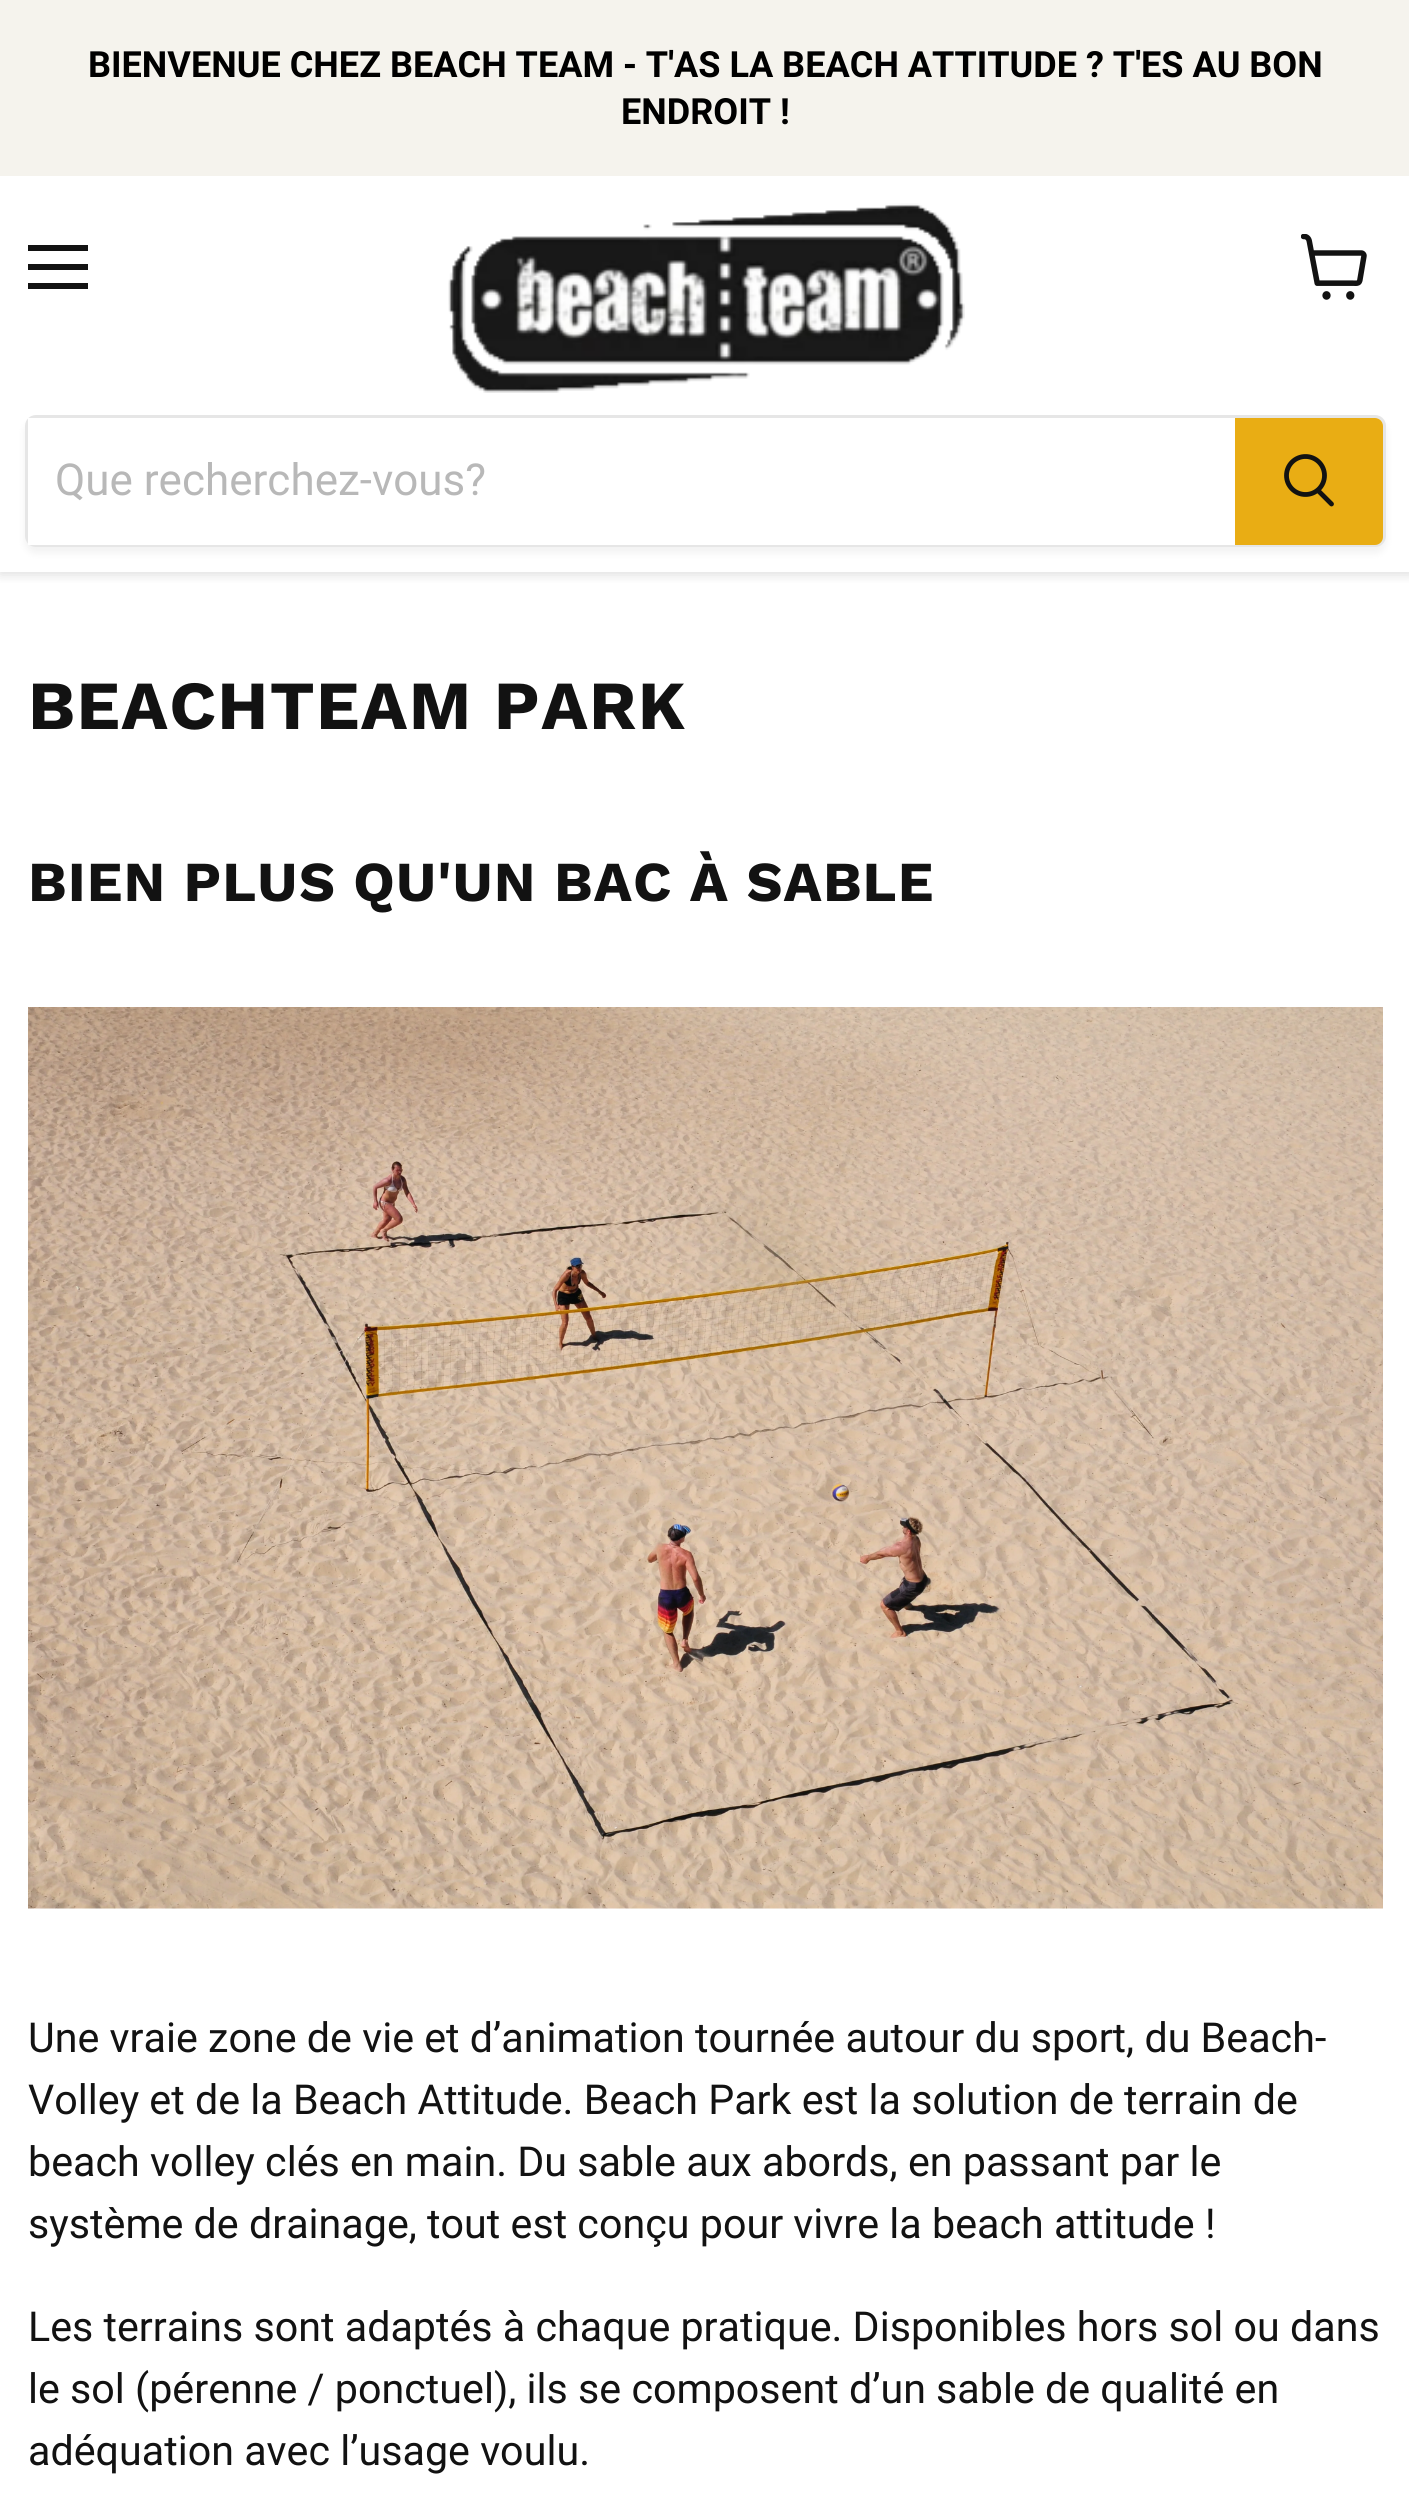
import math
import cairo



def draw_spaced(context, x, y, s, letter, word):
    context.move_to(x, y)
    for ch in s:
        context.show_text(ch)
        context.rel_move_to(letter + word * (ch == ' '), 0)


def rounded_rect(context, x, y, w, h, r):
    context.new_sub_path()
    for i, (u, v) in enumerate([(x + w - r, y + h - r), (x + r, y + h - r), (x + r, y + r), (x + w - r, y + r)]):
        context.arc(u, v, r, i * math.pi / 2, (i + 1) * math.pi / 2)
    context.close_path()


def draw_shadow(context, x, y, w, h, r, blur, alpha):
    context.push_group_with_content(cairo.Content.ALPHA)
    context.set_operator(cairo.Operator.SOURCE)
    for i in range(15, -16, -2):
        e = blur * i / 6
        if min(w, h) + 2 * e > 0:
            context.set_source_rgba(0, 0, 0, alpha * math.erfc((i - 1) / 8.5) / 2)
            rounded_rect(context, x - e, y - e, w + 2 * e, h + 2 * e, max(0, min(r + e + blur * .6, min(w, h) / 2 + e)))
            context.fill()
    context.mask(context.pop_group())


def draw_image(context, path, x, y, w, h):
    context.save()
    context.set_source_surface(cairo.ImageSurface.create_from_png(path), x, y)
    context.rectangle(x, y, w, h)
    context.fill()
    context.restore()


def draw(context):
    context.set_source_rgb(1, 1, 1)
    context.paint()
    context.save()
    context.rectangle(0, 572, 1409, 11)
    context.clip()
    context.set_source_rgb(128 / 255, 128 / 255, 128 / 255)
    draw_shadow(context, 0, 179, 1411, 396, 0, 5.5, 0.25)
    context.restore()
    context.set_source_rgb(245 / 255, 243 / 255, 237 / 255)
    context.rectangle(0, 0, 1409, 176)
    context.fill()
    context.set_source_rgb(18 / 255, 18 / 255, 18 / 255)
    context.rectangle(28, 245, 60, 6)
    context.fill()
    context.rectangle(28, 264, 60, 6)
    context.fill()
    context.rectangle(28, 283, 60, 6)
    context.fill()
    draw_image(context, "images/1.png", 1301, 234, 66, 66)
    draw_image(context, "images/2.png", 448, 203, 517, 190)
    context.set_source_rgb(128 / 255, 128 / 255, 128 / 255)
    draw_shadow(context, 25, 421, 1361, 132, 11, 4, 0.11)
    rounded_rect(context, 26.5, 416.5, 1358, 129, 9.5)
    context.set_source_rgb(230 / 255, 230 / 255, 230 / 255)
    context.set_line_width(3)
    context.stroke()
    context.set_source_rgb(1, 1, 1)
    context.rectangle(28, 418, 1207, 127)
    context.fill()
    context.set_source_rgb(233 / 255, 173 / 255, 20 / 255)
    context.new_path()
    context.move_to(1236.5, 419.5)
    context.line_to(1375, 419.5)
    context.curve_to(1378.5, 419.5, 1381.5, 422.5, 1381.5, 426)
    context.line_to(1381.5, 537)
    context.curve_to(1381.5, 540.5, 1378.5, 543.5, 1375, 543.5)
    context.line_to(1236.5, 543.5)
    context.close_path()
    context.fill_preserve()
    context.stroke()
    context.new_path()
    context.move_to(1331.5, 504)
    context.line_to(1318.5, 491)
    context.set_source_rgb(18 / 255, 18 / 255, 18 / 255)
    context.set_line_width(4.8)
    context.set_line_cap(cairo.LineCap.ROUND)
    context.stroke()
    context.arc(1305.5, 475.5, 19, 0, 2 * math.pi)
    context.set_line_cap(cairo.LineCap.BUTT)
    context.stroke()
    draw_image(context, "images/3.png", 28, 1007, 1355, 902)
    context.select_font_face("Roboto", cairo.FontSlant.NORMAL, cairo.FontWeight.BOLD)
    context.set_font_size(36.1)
    context.set_source_rgb(0, 0, 0)
    draw_spaced(context, 88, 77, "BIENVENUE CHEZ BEACH TEAM - T'AS LA BEACH ATTITUDE ? T'ES AU BON", 0, -0.1)
    context.move_to(621, 124)
    context.show_text("ENDROIT !")
    context.select_font_face("Roboto")
    context.set_font_size(44)
    context.set_source_rgb(184 / 255, 184 / 255, 184 / 255)
    context.move_to(55, 495)
    context.show_text("Que recherchez-vous?")
    context.select_font_face("Work Sans", cairo.FontSlant.NORMAL, cairo.FontWeight.BOLD)
    context.set_font_size(68.75)
    context.set_source_rgb(18 / 255, 18 / 255, 18 / 255)
    draw_spaced(context, 28, 729, "BEACHTEAM PARK", 1.4, 0)
    context.set_font_size(56.4)
    draw_spaced(context, 28, 901, "BIEN PLUS QU'UN BAC À SABLE", 1.1, 0)
    context.select_font_face("Roboto")
    context.set_font_size(41.25)
    context.move_to(28, 2052)
    context.show_text("Une vraie zone de vie et d’animation tournée autour du sport, du Beach-")
    context.move_to(28, 2114)
    context.show_text("Volley et de la Beach Attitude. Beach Park est la solution de terrain de")
    context.move_to(28, 2176)
    context.show_text("beach volley clés en main. Du sable aux abords, en passant par le")
    context.move_to(28, 2238)
    context.show_text("système de drainage, tout est conçu pour vivre la beach attitude !")
    context.move_to(28, 2341)
    context.show_text("Les terrains sont adaptés à chaque pratique. Disponibles hors sol ou dans")
    context.move_to(28, 2403)
    context.show_text("le sol (pérenne / ponctuel), ils se composent d’un sable de qualité en")
    context.move_to(28, 2465)
    context.show_text("adéquation avec l’usage voulu.")


surface = cairo.ImageSurface(cairo.Format.RGB24, 1409, 2494)
context = cairo.Context(surface)
options = cairo.FontOptions()
options.set_hint_metrics(cairo.HintMetrics.OFF)
options.set_hint_style(cairo.HintStyle.NONE)
context.set_font_options(options)
context.set_miter_limit(4)
draw(context)
surface.write_to_png("out.png")
